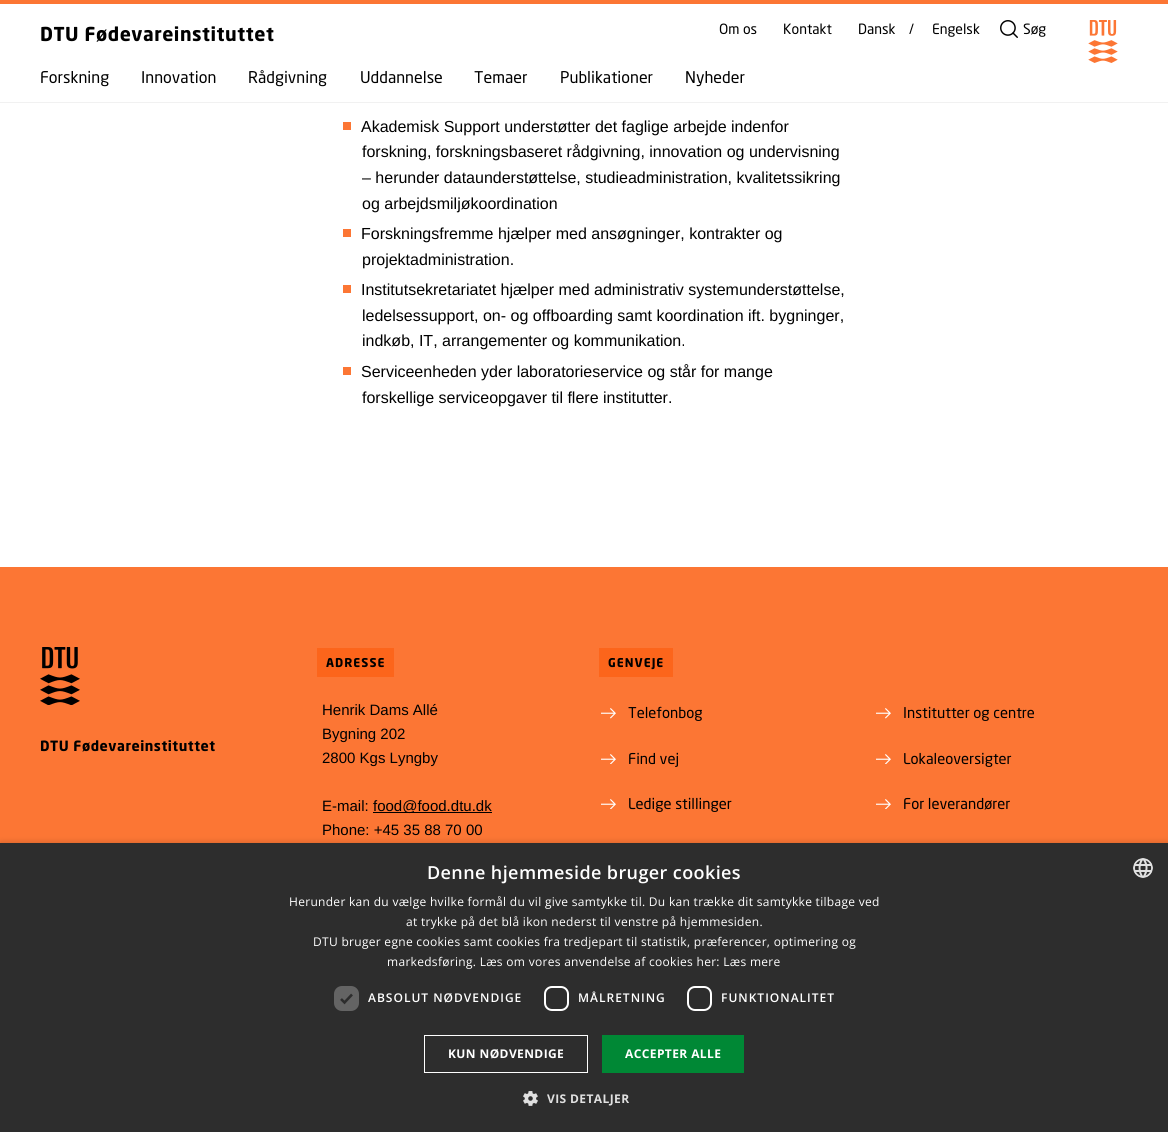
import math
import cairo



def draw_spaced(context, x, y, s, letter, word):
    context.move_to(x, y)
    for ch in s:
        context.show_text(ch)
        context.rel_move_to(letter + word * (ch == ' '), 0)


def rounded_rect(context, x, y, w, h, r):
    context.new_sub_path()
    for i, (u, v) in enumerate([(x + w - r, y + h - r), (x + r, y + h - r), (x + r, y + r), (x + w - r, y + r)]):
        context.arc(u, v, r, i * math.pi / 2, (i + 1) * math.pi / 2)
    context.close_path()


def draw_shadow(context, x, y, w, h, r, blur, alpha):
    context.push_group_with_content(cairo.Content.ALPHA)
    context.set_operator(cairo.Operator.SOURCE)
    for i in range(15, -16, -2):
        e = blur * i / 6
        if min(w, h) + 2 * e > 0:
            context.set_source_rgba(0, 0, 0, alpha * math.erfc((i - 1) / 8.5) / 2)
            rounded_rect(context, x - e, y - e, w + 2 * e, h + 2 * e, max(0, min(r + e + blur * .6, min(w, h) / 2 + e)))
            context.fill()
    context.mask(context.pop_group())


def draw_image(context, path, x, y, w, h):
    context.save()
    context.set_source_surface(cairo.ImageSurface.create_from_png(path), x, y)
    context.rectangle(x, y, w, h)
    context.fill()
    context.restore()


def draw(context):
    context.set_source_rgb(1, 1, 1)
    context.paint()
    context.set_source_rgb(252 / 255, 118 / 255, 52 / 255)
    context.rectangle(0, 0, 1168, 4)
    context.fill()
    context.set_source_rgb(241 / 255, 241 / 255, 241 / 255)
    context.rectangle(0, 102, 1168, 1)
    context.fill()
    draw_image(context, "images/1.png", 1000, 20, 18, 18)
    draw_image(context, "images/2.png", 1088, 20, 30, 43)
    context.set_source_rgb(252 / 255, 118 / 255, 52 / 255)
    context.rectangle(343, 122, 8, 8)
    context.fill()
    context.rectangle(343, 229, 8, 8)
    context.fill()
    context.rectangle(343, 285, 8, 8)
    context.fill()
    context.rectangle(343, 367, 8, 8)
    context.fill()
    context.rectangle(0, 567, 1168, 276)
    context.fill()
    draw_image(context, "images/3.png", 40, 647, 40, 58)
    context.set_source_rgb(252 / 255, 101 / 255, 27 / 255)
    context.rectangle(317, 648, 77, 29)
    context.fill()
    context.set_source_rgb(0, 0, 0)
    context.rectangle(373, 812, 119, 1)
    context.fill()
    context.set_source_rgb(252 / 255, 101 / 255, 27 / 255)
    context.rectangle(599, 648, 74, 29)
    context.fill()
    draw_image(context, "images/4.png", 601, 708, 15, 11)
    draw_image(context, "images/4.png", 876, 708, 15, 11)
    draw_image(context, "images/5.png", 601, 754, 15, 10)
    draw_image(context, "images/5.png", 876, 754, 15, 10)
    draw_image(context, "images/5.png", 601, 799, 15, 10)
    draw_image(context, "images/5.png", 876, 799, 15, 10)
    context.set_source_rgb(0, 0, 0)
    draw_shadow(context, 1, 845, 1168, 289, 0, 4, 0.35)
    context.set_source_rgb(45 / 255, 45 / 255, 45 / 255)
    context.rectangle(0, 843, 1168, 289)
    context.fill()
    draw_image(context, "images/6.png", 1133, 858, 20, 20)
    context.set_source_rgb(100 / 255, 100 / 255, 100 / 255)
    rounded_rect(context, 334, 986, 25, 25, 8)
    context.fill()
    context.new_path()
    context.move_to(341, 999)
    context.line_to(344.5, 1002.5)
    context.line_to(352, 994.5)
    context.set_source_rgb(45 / 255, 45 / 255, 45 / 255)
    context.set_line_width(2.6)
    context.stroke()
    rounded_rect(context, 545, 987, 23, 23, 7)
    context.set_source_rgb(1, 1, 1)
    context.set_line_width(2)
    context.stroke()
    rounded_rect(context, 688, 987, 23, 23, 7)
    context.stroke()
    context.rectangle(424.5, 1035.5, 163, 37)
    context.set_line_width(1)
    context.stroke()
    context.set_source_rgb(0, 136 / 255, 53 / 255)
    context.rectangle(602, 1035, 142, 38)
    context.fill()
    draw_image(context, "images/7.png", 523, 1091, 15, 15)
    context.select_font_face("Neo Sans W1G", cairo.FontSlant.NORMAL, cairo.FontWeight.BOLD)
    context.set_font_size(19)
    context.set_source_rgb(0, 0, 0)
    draw_spaced(context, 40, 41, "DTU Fødevareinstituttet", 0.5, 0)
    context.select_font_face("Neo Sans W1G")
    context.set_font_size(14)
    context.move_to(719, 34)
    context.show_text("Om os")
    context.move_to(783, 34)
    context.show_text("Kontakt")
    context.move_to(858, 34)
    context.show_text("Dansk")
    context.move_to(909, 34)
    context.show_text("/")
    context.move_to(932, 34)
    context.show_text("Engelsk")
    context.move_to(1023, 34)
    context.show_text("Søg")
    context.set_font_size(16)
    context.move_to(40, 83)
    context.show_text("Forskning")
    context.move_to(141, 83)
    context.show_text("Innovation")
    context.move_to(248, 83)
    context.show_text("Rådgivning")
    context.move_to(360, 83)
    context.show_text("Uddannelse")
    context.move_to(474, 83)
    context.show_text("Temaer")
    context.move_to(560, 83)
    context.show_text("Publikationer")
    context.move_to(685, 83)
    context.show_text("Nyheder")
    context.select_font_face("Liberation Sans")
    context.move_to(361, 132)
    context.show_text("Akademisk Support understøtter det faglige arbejde indenfor")
    context.move_to(362, 157)
    context.show_text("forskning, forskningsbaseret rådgivning, innovation og undervisning")
    context.move_to(362, 183)
    context.show_text("– herunder dataunderstøttelse, studieadministration, kvalitetssikring")
    context.move_to(362, 209)
    context.show_text("og arbejdsmiljøkoordination")
    context.move_to(361, 239)
    context.show_text("Forskningsfremme hjælper med ansøgninger, kontrakter og")
    context.move_to(362, 265)
    context.show_text("projektadministration.")
    context.move_to(361, 295)
    context.show_text("Institutsekretariatet hjælper med administrativ systemunderstøttelse,")
    context.move_to(362, 321)
    context.show_text("ledelsessupport, on- og offboarding samt koordination ift. bygninger,")
    context.move_to(362, 346)
    context.show_text("indkøb, IT, arrangementer og kommunikation.")
    context.move_to(361, 377)
    context.show_text("Serviceenheden yder laboratorieservice og står for mange")
    context.move_to(362, 403)
    context.show_text("forskellige serviceopgaver til flere institutter.")
    context.select_font_face("Neo Sans W1G", cairo.FontSlant.NORMAL, cairo.FontWeight.BOLD)
    context.set_font_size(14)
    draw_spaced(context, 40, 751, "DTU Fødevareinstituttet", 0.5, 0)
    context.set_font_size(12)
    draw_spaced(context, 326, 667, "ADRESSE", 1, 0)
    context.select_font_face("Liberation Sans")
    context.set_font_size(15)
    context.move_to(322, 715)
    context.show_text("Henrik Dams Allé")
    context.move_to(322, 739)
    context.show_text("Bygning 202")
    context.move_to(322, 763)
    context.show_text("2800 Kgs Lyngby")
    context.move_to(322, 811)
    context.show_text("E-mail:")
    context.move_to(373, 811)
    context.show_text("food@food.dtu.dk")
    context.move_to(322, 835)
    context.show_text("Phone: +45 35 88 70 00")
    context.select_font_face("Neo Sans W1G", cairo.FontSlant.NORMAL, cairo.FontWeight.BOLD)
    context.set_font_size(12)
    draw_spaced(context, 608, 667, "GENVEJE", 1, 0)
    context.select_font_face("Neo Sans W1G")
    context.set_font_size(14.75)
    context.move_to(628, 718)
    context.show_text("Telefonbog")
    context.move_to(903, 718)
    context.show_text("Institutter og centre")
    context.move_to(628, 764)
    context.show_text("Find vej")
    context.move_to(903, 764)
    context.show_text("Lokaleoversigter")
    context.move_to(628, 809)
    context.show_text("Ledige stillinger")
    context.move_to(903, 809)
    context.show_text("For leverandører")
    context.select_font_face("Open Sans SemiBold")
    context.set_font_size(18)
    context.set_source_rgb(1, 1, 1)
    draw_spaced(context, 427, 879, "Denne hjemmeside bruger cookies", 0.4, 0)
    context.select_font_face("Open Sans")
    context.set_font_size(12)
    draw_spaced(context, 289, 906, "Herunder kan du vælge hvilke formål du vil give samtykke til. Du kan trække dit samtykke tilbage ved", 0.3, 0)
    draw_spaced(context, 406, 926, "at trykke på det blå ikon nederst til venstre på hjemmesiden.", 0.3, 0)
    draw_spaced(context, 313, 946, "DTU bruger egne cookies samt cookies fra tredjepart til statistik, præferencer, optimering og", 0.3, 0)
    draw_spaced(context, 387, 966, "markedsføring. Læs om vores anvendelse af cookies her: Læs mere", 0.3, 0)
    context.select_font_face("Open Sans SemiBold")
    draw_spaced(context, 368, 1002, "ABSOLUT NØDVENDIGE", 1, 0)
    draw_spaced(context, 578, 1002, "MÅLRETNING", 1, 0)
    draw_spaced(context, 721, 1002, "FUNKTIONALITET", 1, 0)
    context.select_font_face("Open Sans", cairo.FontSlant.NORMAL, cairo.FontWeight.BOLD)
    draw_spaced(context, 448, 1058, "KUN NØDVENDIGE", 0.4, 0)
    draw_spaced(context, 625, 1058, "ACCEPTER ALLE", 0.4, 0)
    context.set_source_rgb(224 / 255, 224 / 255, 224 / 255)
    draw_spaced(context, 547, 1103, "VIS DETALJER", 0.4, 0)


surface = cairo.ImageSurface(cairo.Format.RGB24, 1168, 1132)
context = cairo.Context(surface)
options = cairo.FontOptions()
options.set_hint_metrics(cairo.HintMetrics.OFF)
options.set_hint_style(cairo.HintStyle.NONE)
context.set_font_options(options)
context.set_miter_limit(4)
draw(context)
surface.write_to_png("out.png")
